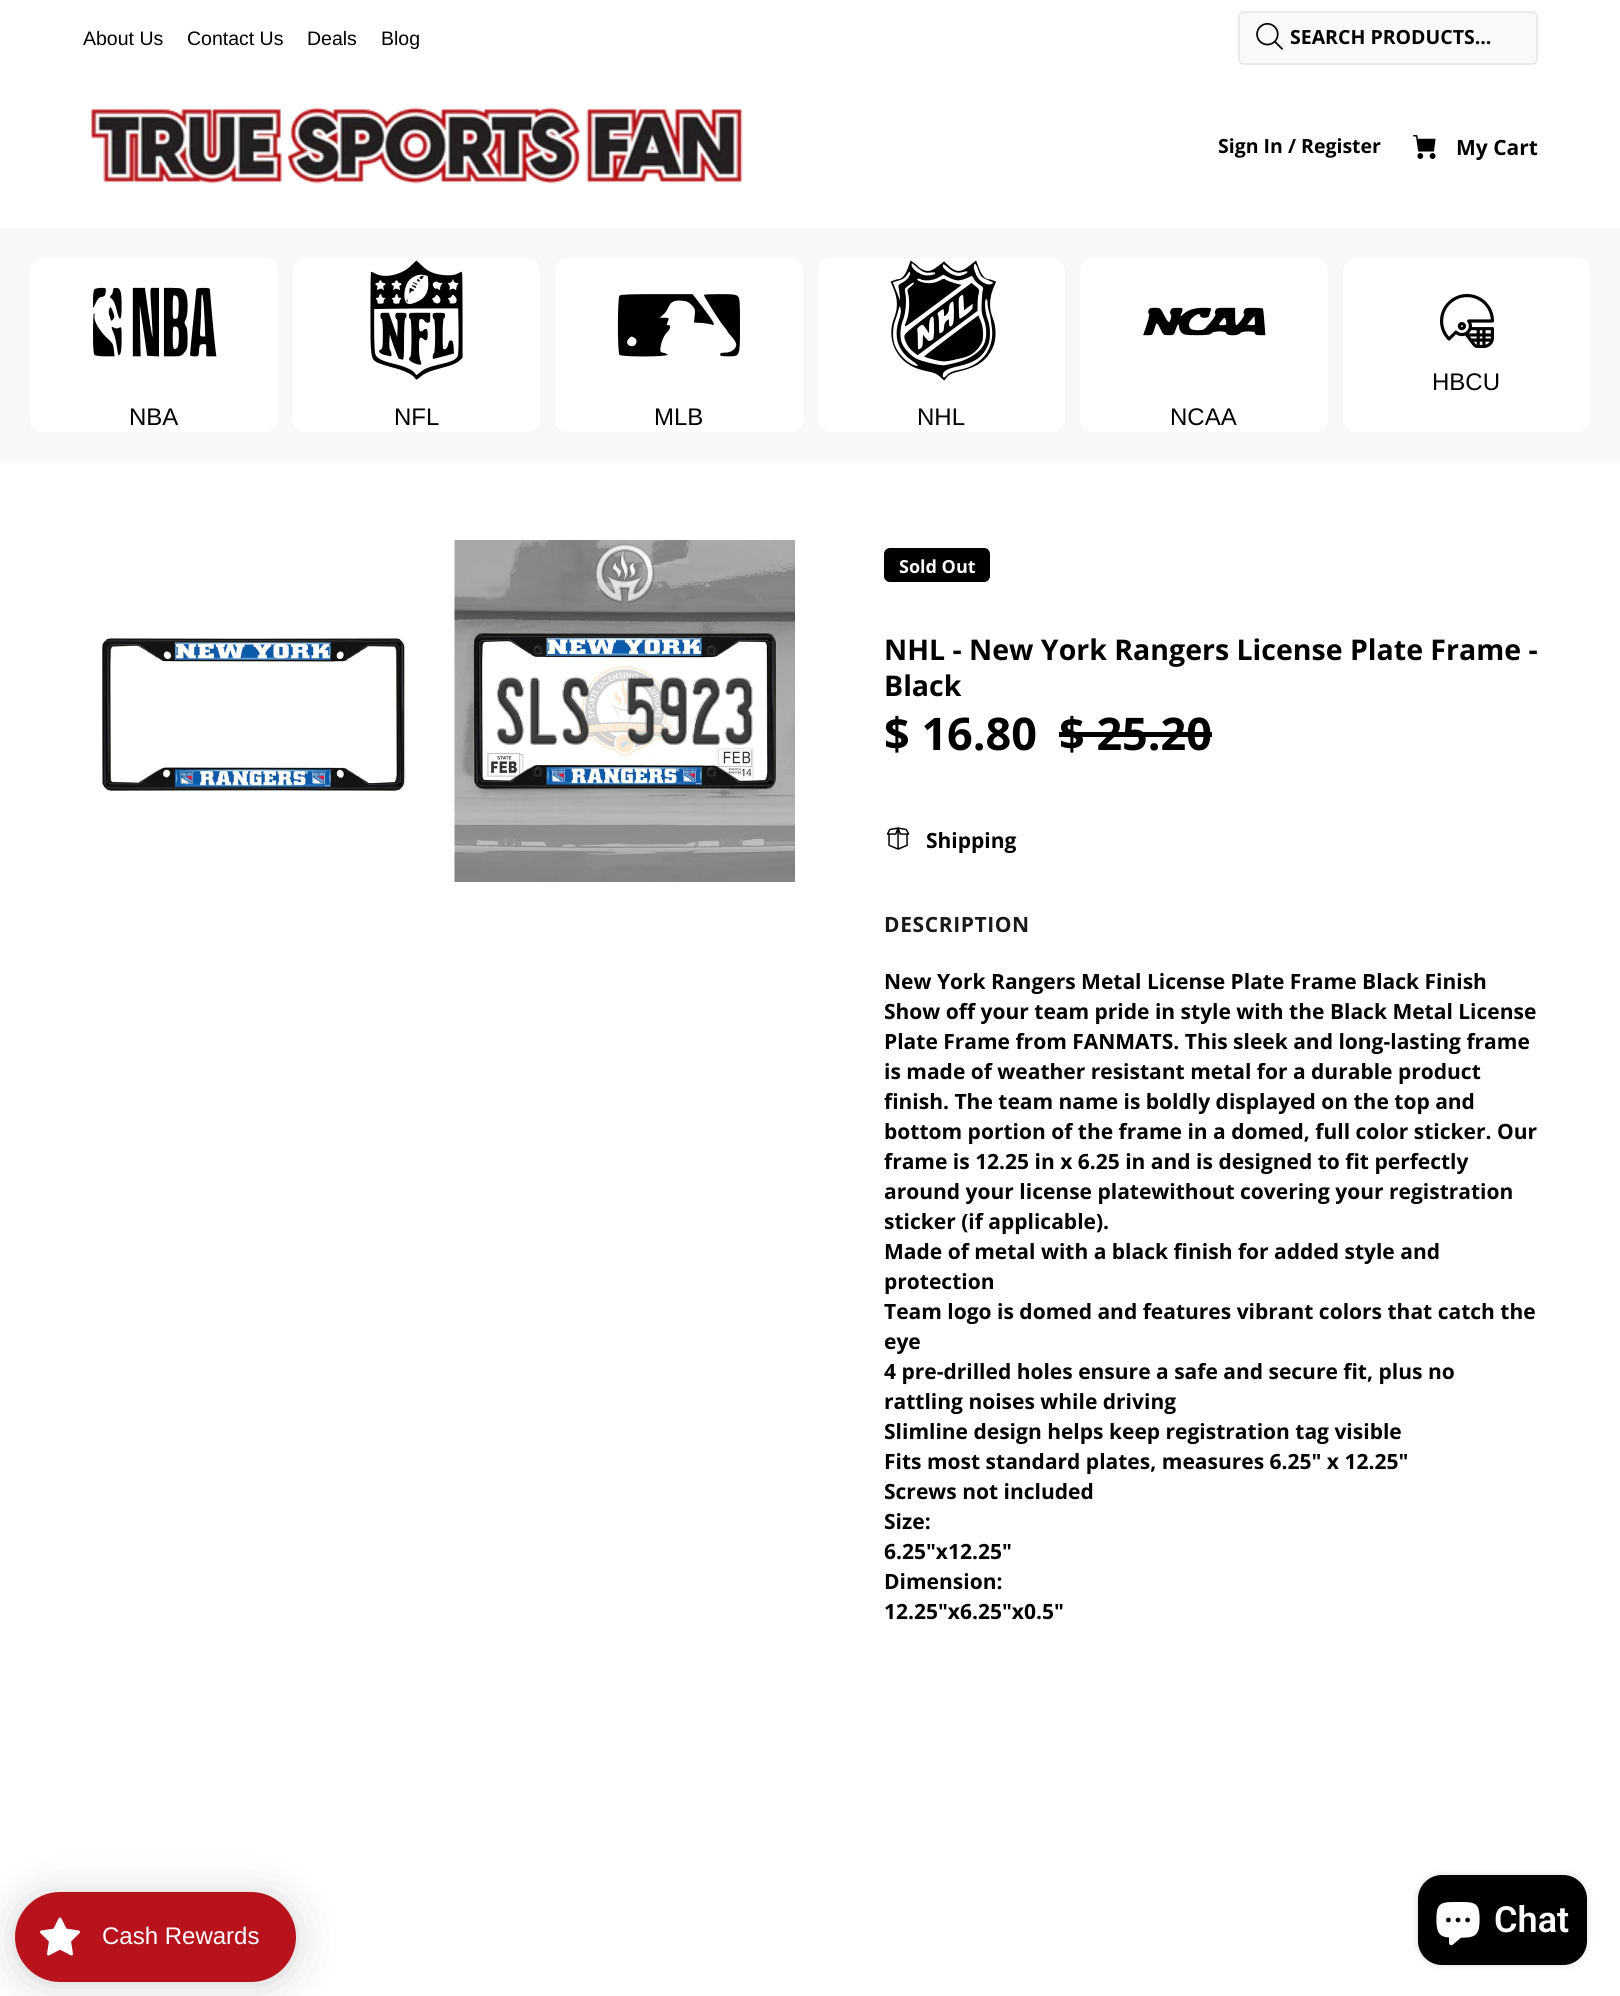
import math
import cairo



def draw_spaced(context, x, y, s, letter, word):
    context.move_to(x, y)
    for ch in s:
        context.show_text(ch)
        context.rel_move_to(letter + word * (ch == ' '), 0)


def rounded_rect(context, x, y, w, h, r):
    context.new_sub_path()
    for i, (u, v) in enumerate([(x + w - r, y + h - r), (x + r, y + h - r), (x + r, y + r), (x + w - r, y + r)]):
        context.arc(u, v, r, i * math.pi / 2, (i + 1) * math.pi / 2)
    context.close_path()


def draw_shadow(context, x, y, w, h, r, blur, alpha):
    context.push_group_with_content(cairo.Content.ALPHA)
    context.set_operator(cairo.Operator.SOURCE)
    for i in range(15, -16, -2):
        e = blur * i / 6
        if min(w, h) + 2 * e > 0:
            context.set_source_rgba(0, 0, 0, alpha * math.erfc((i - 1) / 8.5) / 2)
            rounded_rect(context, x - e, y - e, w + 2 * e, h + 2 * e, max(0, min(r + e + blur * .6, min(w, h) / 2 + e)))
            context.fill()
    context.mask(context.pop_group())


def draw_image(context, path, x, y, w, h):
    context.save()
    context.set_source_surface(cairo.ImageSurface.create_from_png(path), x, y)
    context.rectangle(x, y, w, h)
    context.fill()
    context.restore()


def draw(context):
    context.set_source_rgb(1, 1, 1)
    context.paint()
    context.set_source_rgb(249 / 255, 249 / 255, 250 / 255)
    rounded_rect(context, 1239, 12, 298, 52, 5)
    context.fill_preserve()
    context.set_source_rgb(234 / 255, 234 / 255, 237 / 255)
    context.stroke()
    draw_image(context, "images/1.png", 1256, 23, 27, 27)
    draw_image(context, "images/2.png", 91, 107, 652, 77)
    draw_image(context, "images/3.png", 1413, 135, 23, 24)
    context.set_source_rgb(247 / 255, 248 / 255, 250 / 255)
    context.rectangle(0, 228, 1620, 234)
    context.fill()
    context.set_source_rgb(1, 1, 1)
    rounded_rect(context, 1343, 258, 247, 174, 12)
    context.fill()
    draw_image(context, "images/4.png", 1440, 294, 54, 54)
    rounded_rect(context, 30, 258, 248, 174, 12)
    context.fill()
    draw_image(context, "images/5.png", 93, 287, 124, 70)
    rounded_rect(context, 293, 258, 247, 174, 12)
    context.fill()
    draw_image(context, "images/6.png", 370, 260, 93, 120)
    rounded_rect(context, 555, 258, 248, 174, 12)
    context.fill()
    draw_image(context, "images/7.png", 617, 294, 123, 63)
    rounded_rect(context, 818, 258, 247, 174, 12)
    context.fill()
    draw_image(context, "images/8.png", 890, 260, 107, 121)
    rounded_rect(context, 1080, 258, 248, 174, 12)
    context.fill()
    draw_image(context, "images/9.png", 1143, 307, 123, 29)
    draw_image(context, "images/10.png", 101, 638, 305, 153)
    draw_image(context, "images/11.png", 454, 540, 341, 342)
    context.set_source_rgb(0, 0, 0)
    rounded_rect(context, 884, 548, 106, 34, 6)
    context.fill()
    context.rectangle(1059, 732, 153, 5)
    context.fill()
    draw_image(context, "images/12.png", 886, 827, 24, 23)
    context.set_source_rgb(0, 0, 0)
    draw_shadow(context, 1418, 1875, 169, 90, 24, 4, 0.15)
    context.set_source_rgb(0, 0, 0)
    rounded_rect(context, 1418, 1875, 169, 90, 24)
    context.fill()
    draw_image(context, "images/13.png", 1436, 1902, 44, 44)
    context.set_source_rgb(0, 0, 0)
    draw_shadow(context, 15, 1895, 281, 90, 45, 22.5, 0.15)
    draw_shadow(context, 15, 1893, 281, 90, 45, 4.5, 0.05)
    context.set_source_rgb(184 / 255, 19 / 255, 28 / 255)
    rounded_rect(context, 15, 1892, 281, 90, 45)
    context.fill()
    draw_image(context, "images/14.png", 40, 1917, 40, 39)
    context.select_font_face("Liberation Sans")
    context.set_font_size(19.5)
    context.set_source_rgb(0, 0, 0)
    context.move_to(83, 45)
    context.show_text("About Us")
    context.move_to(187, 45)
    context.show_text("Contact Us")
    context.move_to(307, 45)
    context.show_text("Deals")
    context.move_to(381, 45)
    context.show_text("Blog")
    context.select_font_face("Open Sans", cairo.FontSlant.NORMAL, cairo.FontWeight.BOLD)
    context.move_to(1290, 44)
    context.show_text("SEARCH PRODUCTS...")
    context.move_to(1218, 153)
    context.show_text("Sign In / Register")
    context.set_font_size(21)
    context.move_to(1456, 155)
    context.show_text("My Cart")
    context.select_font_face("Liberation Sans")
    context.set_font_size(24)
    context.move_to(1432, 390)
    context.show_text("HBCU")
    context.move_to(129, 425)
    context.show_text("NBA")
    context.move_to(394, 425)
    context.show_text("NFL")
    context.move_to(654, 425)
    context.show_text("MLB")
    context.move_to(917, 425)
    context.show_text("NHL")
    context.move_to(1170, 425)
    context.show_text("NCAA")
    context.select_font_face("Open Sans", cairo.FontSlant.NORMAL, cairo.FontWeight.BOLD)
    context.set_font_size(18)
    context.set_source_rgb(1, 1, 1)
    context.move_to(899, 573)
    context.show_text("Sold Out")
    context.set_font_size(28.5)
    context.set_source_rgb(0, 0, 0)
    context.move_to(884, 660)
    context.show_text("NHL - New York Rangers License Plate Frame -")
    context.move_to(884, 696)
    context.show_text("Black")
    context.set_font_size(45)
    context.move_to(884, 750)
    context.show_text("$ 16.80")
    context.move_to(1059, 750)
    context.show_text("$ 25.20")
    context.set_font_size(21)
    context.move_to(926, 848)
    context.show_text("Shipping")
    context.set_source_rgb(25 / 255, 25 / 255, 25 / 255)
    draw_spaced(context, 884, 932, "DESCRIPTION", 0.6, 0)
    context.set_source_rgb(0, 0, 0)
    context.move_to(884, 989)
    context.show_text("New York Rangers Metal License Plate Frame Black Finish")
    context.move_to(884, 1019)
    context.show_text("Show off your team pride in style with the Black Metal License")
    context.move_to(884, 1049)
    context.show_text("Plate Frame from FANMATS. This sleek and long-lasting frame")
    context.move_to(884, 1079)
    context.show_text("is made of weather resistant metal for a durable product")
    context.move_to(884, 1109)
    context.show_text("finish. The team name is boldly displayed on the top and")
    context.move_to(884, 1139)
    context.show_text("bottom portion of the frame in a domed, full color sticker. Our")
    context.move_to(884, 1169)
    context.show_text("frame is 12.25 in x 6.25 in and is designed to fit perfectly")
    context.move_to(884, 1199)
    context.show_text("around your license platewithout covering your registration")
    context.move_to(884, 1229)
    context.show_text("sticker (if applicable).")
    context.move_to(884, 1259)
    context.show_text("Made of metal with a black finish for added style and")
    context.move_to(884, 1289)
    context.show_text("protection")
    context.move_to(884, 1319)
    context.show_text("Team logo is domed and features vibrant colors that catch the")
    context.move_to(884, 1349)
    context.show_text("eye")
    context.move_to(884, 1379)
    context.show_text("4 pre-drilled holes ensure a safe and secure fit, plus no")
    context.move_to(884, 1409)
    context.show_text("rattling noises while driving")
    context.move_to(884, 1439)
    context.show_text("Slimline design helps keep registration tag visible")
    context.move_to(884, 1469)
    context.show_text("Fits most standard plates, measures 6.25\" x 12.25\"")
    context.move_to(884, 1499)
    context.show_text("Screws not included")
    context.move_to(884, 1529)
    context.show_text("Size:")
    context.move_to(884, 1559)
    context.show_text("6.25\"x12.25\"")
    context.move_to(884, 1589)
    context.show_text("Dimension:")
    context.move_to(884, 1619)
    context.show_text("12.25\"x6.25\"x0.5\"")
    context.select_font_face("Roboto SemiBold")
    context.set_font_size(36)
    context.set_source_rgb(1, 1, 1)
    context.move_to(1494, 1932)
    context.show_text("Chat")
    context.select_font_face("Liberation Sans")
    context.set_font_size(24)
    context.move_to(102, 1944)
    context.show_text("Cash Rewards")


surface = cairo.ImageSurface(cairo.Format.RGB24, 1620, 1996)
context = cairo.Context(surface)
options = cairo.FontOptions()
options.set_hint_metrics(cairo.HintMetrics.OFF)
options.set_hint_style(cairo.HintStyle.NONE)
context.set_font_options(options)
context.set_miter_limit(4)
draw(context)
surface.write_to_png("out.png")
